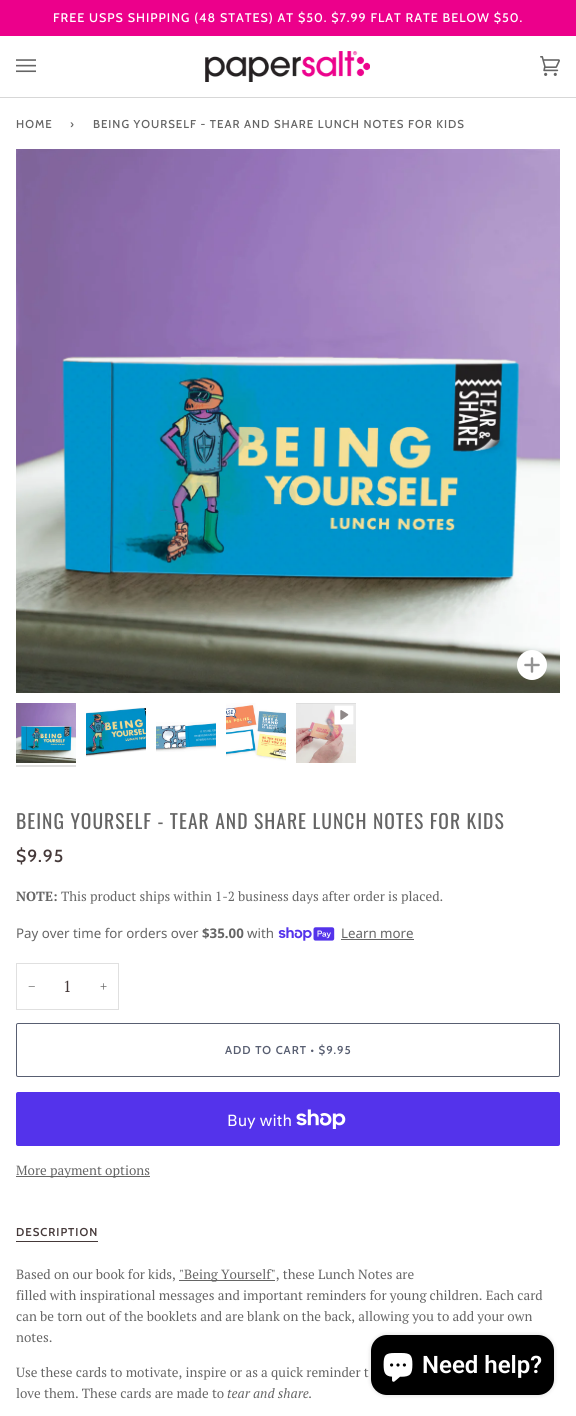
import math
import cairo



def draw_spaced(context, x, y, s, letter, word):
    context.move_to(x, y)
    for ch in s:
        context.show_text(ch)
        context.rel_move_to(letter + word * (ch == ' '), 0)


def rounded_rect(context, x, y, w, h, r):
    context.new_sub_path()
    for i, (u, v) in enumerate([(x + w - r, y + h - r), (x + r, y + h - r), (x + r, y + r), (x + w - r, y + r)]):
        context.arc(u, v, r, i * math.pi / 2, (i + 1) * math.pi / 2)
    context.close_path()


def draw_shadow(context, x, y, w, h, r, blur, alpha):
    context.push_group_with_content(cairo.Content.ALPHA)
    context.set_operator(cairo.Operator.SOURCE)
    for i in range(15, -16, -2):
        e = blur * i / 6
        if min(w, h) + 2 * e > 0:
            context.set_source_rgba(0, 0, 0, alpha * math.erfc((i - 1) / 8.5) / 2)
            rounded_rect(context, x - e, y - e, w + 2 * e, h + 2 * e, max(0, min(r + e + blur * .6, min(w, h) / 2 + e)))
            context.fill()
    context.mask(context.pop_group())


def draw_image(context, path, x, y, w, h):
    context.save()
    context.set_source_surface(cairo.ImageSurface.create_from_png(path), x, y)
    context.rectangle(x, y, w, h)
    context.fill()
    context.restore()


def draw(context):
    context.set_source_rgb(1, 1, 1)
    context.paint()
    context.set_source_rgb(236 / 255, 0, 139 / 255)
    context.rectangle(0, 0, 576, 36)
    context.fill()
    context.set_source_rgb(215 / 255, 215 / 255, 215 / 255)
    context.rectangle(0, 97, 576, 1)
    context.fill()
    draw_image(context, "images/1.png", 16, 59, 20, 14)
    draw_image(context, "images/2.png", 205, 51, 165, 31)
    draw_image(context, "images/3.png", 540, 56, 20, 20)
    draw_image(context, "images/4.png", 16, 149, 544, 544)
    draw_image(context, "images/5.png", 517, 650, 30, 30)
    draw_image(context, "images/6.png", 16, 703, 60, 60)
    context.set_source_rgb(224 / 255, 224 / 255, 224 / 255)
    context.rectangle(16, 765, 60, 2)
    context.fill()
    draw_image(context, "images/7.png", 86, 707, 60, 50)
    draw_image(context, "images/8.png", 156, 722, 60, 30)
    draw_image(context, "images/9.png", 226, 703, 60, 58)
    draw_image(context, "images/10.png", 296, 703, 60, 60)
    draw_image(context, "images/11.png", 334, 705, 20, 20)
    draw_image(context, "images/12.png", 278, 927, 57, 14)
    context.set_source_rgb(101 / 255, 101 / 255, 101 / 255)
    context.rectangle(341, 939, 73, 1)
    context.fill()
    context.rectangle(16.5, 963.5, 102, 46)
    context.set_source_rgb(224 / 255, 224 / 255, 224 / 255)
    context.set_line_width(1)
    context.stroke()
    rounded_rect(context, 16.5, 1023.5, 543, 53, 1.5)
    context.set_source_rgb(88 / 255, 94 / 255, 113 / 255)
    context.stroke()
    context.set_source_rgb(84 / 255, 51 / 255, 235 / 255)
    rounded_rect(context, 16, 1092, 544, 54, 2)
    context.fill()
    draw_image(context, "images/13.png", 296, 1109, 50, 20)
    context.set_source_rgb(101 / 255, 101 / 255, 101 / 255)
    context.rectangle(16, 1176, 134, 1)
    context.fill()
    context.set_source_rgb(69 / 255, 57 / 255, 57 / 255)
    context.rectangle(16, 1241, 82, 1)
    context.fill()
    context.set_source_rgb(101 / 255, 101 / 255, 101 / 255)
    context.rectangle(179, 1280, 96, 1)
    context.fill()
    context.set_source_rgb(0, 0, 0)
    draw_shadow(context, 371, 1335, 183, 60, 16, 2.5, 0.15)
    context.set_source_rgb(0, 0, 0)
    rounded_rect(context, 371, 1335, 183, 60, 16)
    context.fill()
    draw_image(context, "images/14.png", 383, 1353, 30, 29)
    context.select_font_face("Cabin Medium")
    context.set_font_size(12.5)
    context.set_source_rgb(1, 1, 1)
    draw_spaced(context, 53, 22, "FREE USPS SHIPPING (48 STATES) AT $50. $7.99 FLAT RATE BELOW $50.", 1, 0)
    context.set_font_size(11.4)
    context.set_source_rgb(101 / 255, 101 / 255, 101 / 255)
    draw_spaced(context, 16, 128, "HOME", 1, 0)
    draw_spaced(context, 70, 128, "›", 1, 0)
    draw_spaced(context, 93, 128, "BEING YOURSELF - TEAR AND SHARE LUNCH NOTES FOR KIDS", 1, 0)
    context.select_font_face("Oswald")
    context.set_font_size(19.6)
    draw_spaced(context, 16, 829, "BEING YOURSELF - TEAR AND SHARE LUNCH NOTES FOR KIDS", 1, 0)
    context.select_font_face("Cabin Medium")
    context.set_font_size(17.5)
    context.set_source_rgb(69 / 255, 57 / 255, 57 / 255)
    draw_spaced(context, 16, 862, "$9.95", 1, 0)
    context.select_font_face("PT Serif", cairo.FontSlant.NORMAL, cairo.FontWeight.BOLD)
    context.set_font_size(13.3)
    context.set_source_rgb(101 / 255, 101 / 255, 101 / 255)
    context.move_to(16, 901)
    context.show_text("NOTE:")
    context.select_font_face("PT Serif")
    context.move_to(61, 901)
    context.show_text("This product ships within 1-2 business days after order is placed.")
    context.select_font_face("Noto Sans")
    context.move_to(16, 938)
    context.show_text("Pay over time for orders over")
    context.select_font_face("Noto Sans", cairo.FontSlant.NORMAL, cairo.FontWeight.BOLD)
    context.move_to(202, 938)
    context.show_text("$35.00")
    context.select_font_face("Noto Sans")
    context.move_to(247, 938)
    context.show_text("with")
    context.move_to(341, 938)
    context.show_text("Learn more")
    context.select_font_face("Liberation Serif")
    context.move_to(28, 991)
    context.show_text("−")
    context.select_font_face("PT Serif")
    context.set_font_size(16)
    context.set_source_rgb(69 / 255, 57 / 255, 57 / 255)
    context.move_to(63, 992)
    context.show_text("1")
    context.set_font_size(13.3)
    context.set_source_rgb(101 / 255, 101 / 255, 101 / 255)
    context.move_to(100, 991)
    context.show_text("+")
    context.select_font_face("Cabin SemiBold")
    context.set_font_size(11.4)
    context.set_source_rgb(88 / 255, 94 / 255, 113 / 255)
    draw_spaced(context, 225, 1054, "ADD TO CART • $9.95", 1, 0)
    context.select_font_face("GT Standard")
    context.set_font_size(16)
    context.set_source_rgb(1, 1, 1)
    context.move_to(227, 1126)
    context.show_text("Buy with")
    context.select_font_face("PT Serif")
    context.set_font_size(13.3)
    context.set_source_rgb(101 / 255, 101 / 255, 101 / 255)
    context.move_to(16, 1175)
    context.show_text("More payment options")
    context.select_font_face("Cabin SemiBold")
    context.set_font_size(11.4)
    context.set_source_rgb(69 / 255, 57 / 255, 57 / 255)
    draw_spaced(context, 16, 1236, "DESCRIPTION", 1, 0)
    context.select_font_face("PT Serif")
    context.set_font_size(13.3)
    context.set_source_rgb(101 / 255, 101 / 255, 101 / 255)
    context.move_to(16, 1279)
    context.show_text("Based on our book for kids,")
    context.move_to(179, 1279)
    context.show_text("\"Being Yourself\", these Lunch Notes are")
    context.move_to(16, 1300)
    context.show_text("filled with inspirational messages and important reminders for young children. Each card")
    context.move_to(16, 1321)
    context.show_text("can be torn out of the booklets and are blank on the back, allowing you to add your own")
    context.move_to(16, 1342)
    context.show_text("notes.")
    context.move_to(16, 1377)
    context.show_text("Use these cards to motivate, inspire or as a quick reminder t")
    context.move_to(16, 1398)
    context.show_text("love them. These cards are made to")
    context.select_font_face("PT Serif", cairo.FontSlant.ITALIC)
    context.move_to(227, 1398)
    context.show_text("tear and share.")
    context.select_font_face("Roboto SemiBold")
    context.set_font_size(24)
    context.set_source_rgb(1, 1, 1)
    context.move_to(422, 1373)
    context.show_text("Need help?")


surface = cairo.ImageSurface(cairo.Format.RGB24, 576, 1416)
context = cairo.Context(surface)
options = cairo.FontOptions()
options.set_hint_metrics(cairo.HintMetrics.OFF)
options.set_hint_style(cairo.HintStyle.NONE)
context.set_font_options(options)
context.set_miter_limit(4)
draw(context)
surface.write_to_png("out.png")
